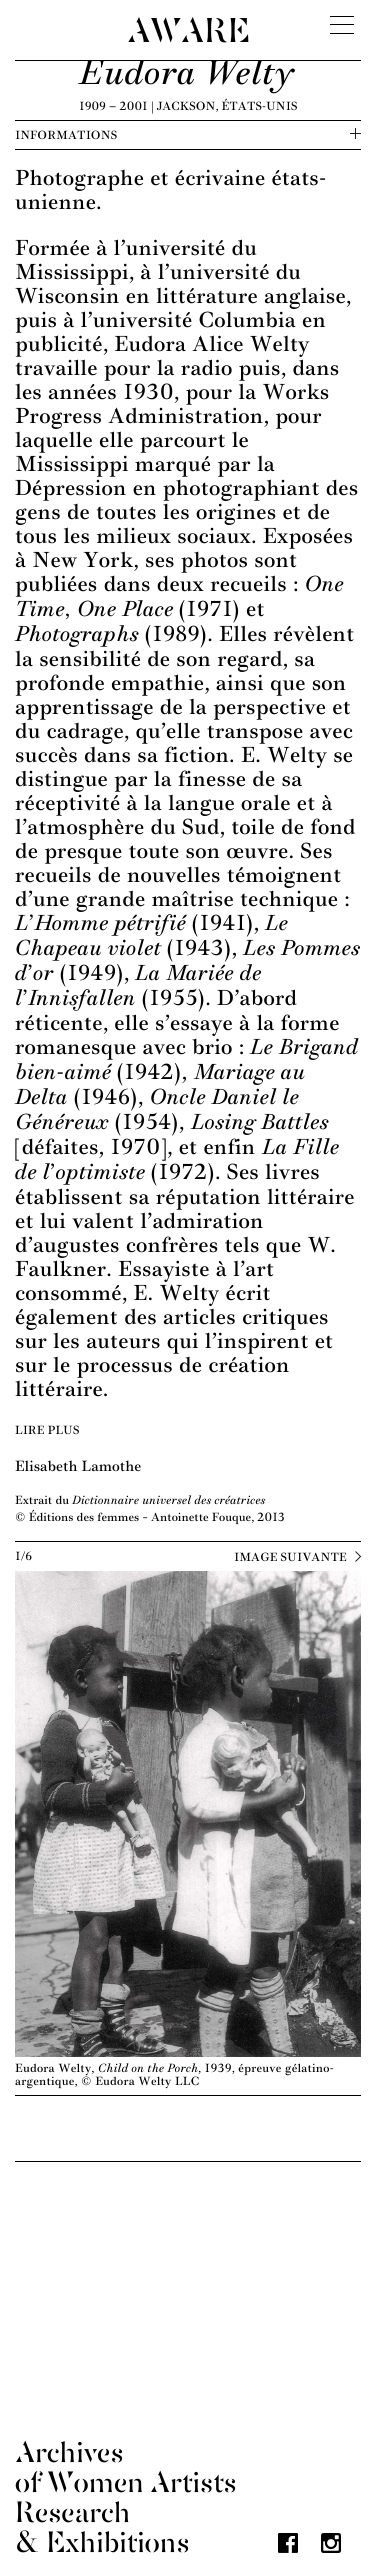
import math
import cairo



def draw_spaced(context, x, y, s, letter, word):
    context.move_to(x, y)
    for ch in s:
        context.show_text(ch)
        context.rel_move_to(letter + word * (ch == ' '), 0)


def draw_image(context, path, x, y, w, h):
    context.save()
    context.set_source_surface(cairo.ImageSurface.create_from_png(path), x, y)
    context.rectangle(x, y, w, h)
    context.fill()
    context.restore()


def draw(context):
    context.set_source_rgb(1, 1, 1)
    context.paint()
    context.set_source_rgb(0, 0, 0)
    context.rectangle(330, 16, 24, 1)
    context.fill()
    context.rectangle(330, 33, 24, 1)
    context.fill()
    context.rectangle(330, 24, 24, 1)
    context.fill()
    context.rectangle(15, 120, 346, 1)
    context.fill()
    context.rectangle(15, 149, 346, 1)
    context.fill()
    draw_image(context, "images/1.png", 350, 128, 11, 11)
    context.rectangle(15, 1541, 346, 1)
    context.fill()
    context.new_path()
    context.move_to(355.5, 1561.5)
    context.line_to(360.5, 1556.5)
    context.line_to(355.5, 1551.5)
    context.set_source_rgb(29 / 255, 29 / 255, 27 / 255)
    context.set_line_width(1)
    context.stroke()
    draw_image(context, "images/2.png", 15, 1571, 346, 486)
    context.set_source_rgb(0, 0, 0)
    context.rectangle(15, 2095, 346, 1)
    context.fill()
    context.rectangle(15, 2161, 346, 1)
    context.fill()
    draw_image(context, "images/3.png", 278, 2533, 20, 20)
    draw_image(context, "images/4.png", 321, 2533, 20, 20)
    context.select_font_face("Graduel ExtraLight")
    context.set_font_size(35)
    context.move_to(127, 42)
    context.show_text("AWARE")
    context.select_font_face("Graduel", cairo.FontSlant.ITALIC)
    draw_spaced(context, 79, 84, "Eudora Welty", 1.4, 0)
    context.set_source_rgb(1, 1, 1)
    context.rectangle(84, 58, 179, 3)
    context.fill()
    context.set_source_rgb(0, 0, 0)
    context.rectangle(15, 60, 346, 1)
    context.fill()
    context.select_font_face("Graduel")
    context.set_font_size(12)
    context.move_to(79, 110)
    context.show_text("1909 — 2001 | JACKSON, ÉTATS-UNIS")
    context.move_to(15, 139)
    context.show_text("INFORMATIONS")
    context.set_font_size(22)
    draw_spaced(context, 15, 185, "Photographe et écrivaine états-", 0.2, 0)
    draw_spaced(context, 15, 209, "unienne.", 0.2, 0)
    draw_spaced(context, 15, 255, "Formée à l’université du", 0.2, 0)
    draw_spaced(context, 15, 279, "Mississippi, à l’université du", 0.2, 0)
    draw_spaced(context, 15, 303, "Wisconsin en littérature anglaise,", 0.2, 0)
    draw_spaced(context, 15, 327, "puis à l’université Columbia en", 0.2, 0)
    draw_spaced(context, 15, 351, "publicité, Eudora Alice Welty", 0.2, 0)
    draw_spaced(context, 15, 375, "travaille pour la radio puis, dans", 0.2, 0)
    draw_spaced(context, 15, 399, "les années 1930, pour la Works", 0.2, 0)
    draw_spaced(context, 15, 423, "Progress Administration, pour", 0.2, 0)
    draw_spaced(context, 15, 447, "laquelle elle parcourt le", 0.2, 0)
    draw_spaced(context, 15, 471, "Mississippi marqué par la", 0.2, 0)
    draw_spaced(context, 15, 495, "Dépression en photographiant des", 0.2, 0)
    draw_spaced(context, 15, 519, "gens de toutes les origines et de", 0.2, 0)
    draw_spaced(context, 15, 543, "tous les milieux sociaux. Exposées", 0.2, 0)
    draw_spaced(context, 15, 567, "à New York, ses photos sont", 0.2, 0)
    draw_spaced(context, 15, 591, "publiées dans deux recueils :", 0.2, 0)
    context.select_font_face("Graduel", cairo.FontSlant.ITALIC)
    draw_spaced(context, 304, 591, "One", 0.9, 0)
    draw_spaced(context, 15, 616, "Time, One Place", 0.9, 0)
    context.select_font_face("Graduel")
    draw_spaced(context, 179, 616, "(1971) et", 0.2, 0)
    context.select_font_face("Graduel", cairo.FontSlant.ITALIC)
    draw_spaced(context, 15, 641, "Photographs", 0.9, 0)
    context.select_font_face("Graduel")
    draw_spaced(context, 145, 641, "(1989). Elles révèlent", 0.2, 0)
    draw_spaced(context, 15, 666, "la sensibilité de son regard, sa", 0.2, 0)
    draw_spaced(context, 15, 690, "profonde empathie, ainsi que son", 0.2, 0)
    draw_spaced(context, 15, 714, "apprentissage de la perspective et", 0.2, 0)
    draw_spaced(context, 15, 738, "du cadrage, qu’elle transpose avec", 0.2, 0)
    draw_spaced(context, 15, 762, "succès dans sa fiction. E. Welty se", 0.2, 0)
    draw_spaced(context, 15, 786, "distingue par la finesse de sa", 0.2, 0)
    draw_spaced(context, 15, 810, "réceptivité à la langue orale et à", 0.2, 0)
    draw_spaced(context, 15, 834, "l’atmosphère du Sud, toile de fond", 0.2, 0)
    draw_spaced(context, 15, 858, "de presque toute son œuvre. Ses", 0.2, 0)
    draw_spaced(context, 15, 882, "recueils de nouvelles témoignent", 0.2, 0)
    draw_spaced(context, 15, 906, "d’une grande maîtrise technique :", 0.2, 0)
    context.select_font_face("Graduel", cairo.FontSlant.ITALIC)
    draw_spaced(context, 15, 930, "L’Homme pétrifié", 0.9, 0)
    context.select_font_face("Graduel")
    draw_spaced(context, 192, 930, "(1941),", 0.2, 0)
    context.select_font_face("Graduel", cairo.FontSlant.ITALIC)
    draw_spaced(context, 265, 930, "Le", 0.9, 0)
    draw_spaced(context, 15, 955, "Chapeau violet", 0.9, 0)
    context.select_font_face("Graduel")
    draw_spaced(context, 167, 955, "(1943),", 0.2, 0)
    context.select_font_face("Graduel", cairo.FontSlant.ITALIC)
    draw_spaced(context, 243, 955, "Les Pommes", 0.9, 0)
    draw_spaced(context, 15, 980, "d’or", 0.9, 0)
    context.select_font_face("Graduel")
    draw_spaced(context, 60, 980, "(1949),", 0.2, 0)
    context.select_font_face("Graduel", cairo.FontSlant.ITALIC)
    draw_spaced(context, 135, 980, "La Mariée de", 0.9, 0)
    draw_spaced(context, 15, 1005, "l’Innisfallen", 0.9, 0)
    context.select_font_face("Graduel")
    draw_spaced(context, 142, 1005, "(1955). D’abord", 0.2, 0)
    draw_spaced(context, 15, 1030, "réticente, elle s’essaye à la forme", 0.2, 0)
    draw_spaced(context, 15, 1054, "romanesque avec brio :", 0.2, 0)
    context.select_font_face("Graduel", cairo.FontSlant.ITALIC)
    draw_spaced(context, 250, 1054, "Le Brigand", 0.9, 0)
    draw_spaced(context, 15, 1079, "bien-aimé", 0.9, 0)
    context.select_font_face("Graduel")
    draw_spaced(context, 117, 1079, "(1942),", 0.2, 0)
    context.select_font_face("Graduel", cairo.FontSlant.ITALIC)
    draw_spaced(context, 194, 1079, "Mariage au", 0.9, 0)
    draw_spaced(context, 15, 1104, "Delta", 0.9, 0)
    context.select_font_face("Graduel")
    draw_spaced(context, 74, 1104, "(1946),", 0.2, 0)
    context.select_font_face("Graduel", cairo.FontSlant.ITALIC)
    draw_spaced(context, 149, 1104, "Oncle Daniel le", 0.9, 0)
    draw_spaced(context, 15, 1129, "Généreux", 0.9, 0)
    context.select_font_face("Graduel")
    draw_spaced(context, 115, 1129, "(1954),", 0.2, 0)
    context.select_font_face("Graduel", cairo.FontSlant.ITALIC)
    draw_spaced(context, 191, 1129, "Losing Battles", 0.9, 0)
    context.select_font_face("Graduel")
    draw_spaced(context, 15, 1154, "[défaites, 1970], et enfin", 0.2, 0)
    context.select_font_face("Graduel", cairo.FontSlant.ITALIC)
    draw_spaced(context, 262, 1154, "La Fille", 0.9, 0)
    draw_spaced(context, 15, 1179, "de l’optimiste", 0.9, 0)
    context.select_font_face("Graduel")
    draw_spaced(context, 151, 1179, "(1972). Ses livres", 0.2, 0)
    draw_spaced(context, 15, 1204, "établissent sa réputation littéraire", 0.2, 0)
    draw_spaced(context, 15, 1228, "et lui valent l’admiration", 0.2, 0)
    draw_spaced(context, 15, 1252, "d’augustes confrères tels que W.", 0.2, 0)
    draw_spaced(context, 15, 1276, "Faulkner. Essayiste à l’art", 0.2, 0)
    draw_spaced(context, 15, 1300, "consommé, E. Welty écrit", 0.2, 0)
    draw_spaced(context, 15, 1324, "également des articles critiques", 0.2, 0)
    draw_spaced(context, 15, 1348, "sur les auteurs qui l’inspirent et", 0.2, 0)
    draw_spaced(context, 15, 1372, "sur le processus de création", 0.2, 0)
    draw_spaced(context, 15, 1396, "littéraire.", 0.2, 0)
    context.set_font_size(12)
    context.move_to(15, 1434)
    context.show_text("LIRE PLUS")
    context.set_font_size(15)
    context.move_to(15, 1471)
    context.show_text("Elisabeth Lamothe")
    context.set_font_size(12)
    context.move_to(15, 1504)
    context.show_text("Extrait du")
    context.select_font_face("Graduel", cairo.FontSlant.ITALIC)
    draw_spaced(context, 72, 1504, "Dictionnaire universel des créatrices", 0.5, 0)
    context.select_font_face("Graduel")
    context.move_to(15, 1521)
    context.show_text("© Éditions des femmes – Antoinette Fouque, 2013")
    context.move_to(15, 1560)
    context.show_text("1/6")
    context.move_to(234, 1561)
    context.show_text("IMAGE SUIVANTE")
    draw_spaced(context, 15, 2072, "Eudora Welty,", 0.2, 0)
    context.select_font_face("Graduel", cairo.FontSlant.ITALIC)
    draw_spaced(context, 98, 2072, "Child on the Porch", 0.5, 0)
    context.select_font_face("Graduel")
    draw_spaced(context, 198, 2072, ", 1939, épreuve gélatino-", 0.2, 0)
    draw_spaced(context, 15, 2085, "argentique, © Eudora Welty LLC", 0.2, 0)
    context.select_font_face("Graduel ExtraLight")
    context.set_font_size(30)
    context.move_to(15, 2462)
    context.show_text("Archives")
    context.move_to(15, 2492)
    context.show_text("of Women Artists")
    context.move_to(15, 2522)
    context.show_text("Research")
    context.move_to(15, 2552)
    context.show_text("& Exhibitions")


surface = cairo.ImageSurface(cairo.Format.RGB24, 376, 2563)
context = cairo.Context(surface)
options = cairo.FontOptions()
options.set_hint_metrics(cairo.HintMetrics.OFF)
options.set_hint_style(cairo.HintStyle.NONE)
context.set_font_options(options)
context.set_miter_limit(4)
draw(context)
surface.write_to_png("out.png")
